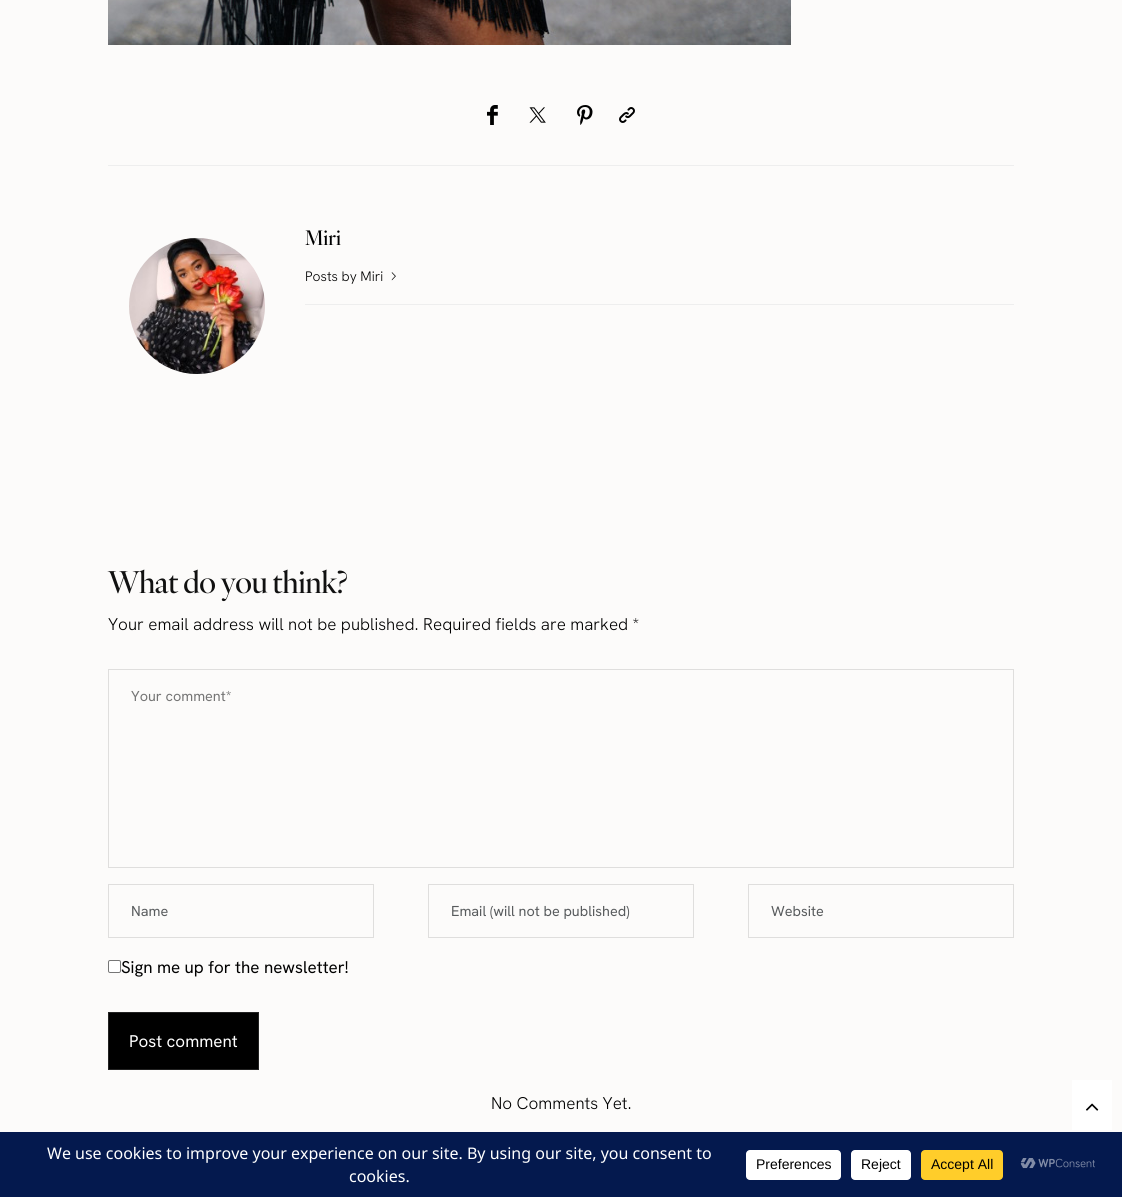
import math
import cairo



def draw_spaced(context, x, y, s, letter, word):
    context.move_to(x, y)
    for ch in s:
        context.show_text(ch)
        context.rel_move_to(letter + word * (ch == ' '), 0)


def rounded_rect(context, x, y, w, h, r):
    context.new_sub_path()
    for i, (u, v) in enumerate([(x + w - r, y + h - r), (x + r, y + h - r), (x + r, y + r), (x + w - r, y + r)]):
        context.arc(u, v, r, i * math.pi / 2, (i + 1) * math.pi / 2)
    context.close_path()


def draw_image(context, path, x, y, w, h):
    context.save()
    context.set_source_surface(cairo.ImageSurface.create_from_png(path), x, y)
    context.rectangle(x, y, w, h)
    context.fill()
    context.restore()


def draw(context):
    context.set_source_rgb(252 / 255, 251 / 255, 250 / 255)
    context.paint()
    draw_image(context, "images/1.png", 108, 0, 683, 45)
    context.set_source_rgb(238 / 255, 238 / 255, 238 / 255)
    context.rectangle(108, 165, 906, 1)
    context.fill()
    draw_image(context, "images/2.png", 487, 105, 11, 20)
    draw_image(context, "images/3.png", 529, 107, 17, 16)
    draw_image(context, "images/4.png", 577, 105, 16, 20)
    draw_image(context, "images/5.png", 619, 107, 16, 16)
    draw_image(context, "images/6.png", 129, 238, 136, 136)
    draw_image(context, "images/7.png", 391, 272, 5, 9)
    context.rectangle(305, 304, 709, 1)
    context.fill()
    context.rectangle(108.5, 669.5, 905, 198)
    context.set_source_rgb(223 / 255, 222 / 255, 221 / 255)
    context.set_line_width(1)
    context.stroke()
    context.rectangle(108.5, 884.5, 265, 53)
    context.stroke()
    context.rectangle(428.5, 884.5, 265, 53)
    context.stroke()
    context.rectangle(748.5, 884.5, 265, 53)
    context.stroke()
    context.set_source_rgb(1, 1, 1)
    rounded_rect(context, 108.5, 960.5, 12, 12, 1.5)
    context.fill_preserve()
    context.set_source_rgb(118 / 255, 118 / 255, 118 / 255)
    context.stroke()
    context.set_source_rgb(0, 0, 0)
    context.rectangle(108.5, 1012.5, 150, 57)
    context.fill_preserve()
    context.set_source_rgb(34 / 255, 34 / 255, 34 / 255)
    context.stroke()
    context.set_source_rgb(1, 1, 1)
    context.rectangle(1072, 1080, 40, 50)
    context.fill()
    draw_image(context, "images/8.png", 1086, 1103, 13, 8)
    context.set_source_rgb(4 / 255, 25 / 255, 78 / 255)
    context.rectangle(0, 1132, 1122, 65)
    context.fill()
    context.set_source_rgb(1, 1, 1)
    rounded_rect(context, 746, 1150, 95, 30, 4)
    context.fill()
    rounded_rect(context, 851, 1150, 60, 30, 4)
    context.fill()
    context.set_source_rgb(1, 205 / 255, 42 / 255)
    rounded_rect(context, 921, 1150, 82, 30, 4)
    context.fill()
    draw_image(context, "images/9.png", 1020, 1158, 75, 11)
    context.select_font_face("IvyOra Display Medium")
    context.set_font_size(20)
    context.set_source_rgb(0, 0, 0)
    context.move_to(305, 245)
    context.show_text("Miri")
    context.select_font_face("Hanken Grotesk Light")
    context.set_font_size(13.75)
    context.move_to(305, 281)
    context.show_text("Posts by Miri")
    context.select_font_face("IvyOra Display Medium")
    context.set_font_size(30)
    context.set_source_rgb(17 / 255, 17 / 255, 17 / 255)
    draw_spaced(context, 108, 593, "What do you think?", -0.5, 0)
    context.select_font_face("Hanken Grotesk Light")
    context.set_font_size(17)
    context.set_source_rgb(0, 0, 0)
    context.move_to(108, 630)
    context.show_text("Your email address will not be published. Required fields are marked *")
    context.select_font_face("Hanken Grotesk")
    context.set_font_size(14.4)
    context.set_source_rgb(117 / 255, 117 / 255, 117 / 255)
    context.move_to(131, 701)
    context.show_text("Your comment*")
    context.set_source_rgb(88 / 255, 91 / 255, 93 / 255)
    context.move_to(131, 916)
    context.show_text("Name")
    context.move_to(451, 916)
    context.show_text("Email (will not be published)")
    context.move_to(771, 916)
    context.show_text("Website")
    context.set_font_size(17)
    context.set_source_rgb(0, 0, 0)
    context.move_to(121, 973)
    context.show_text("Sign me up for the newsletter!")
    context.set_source_rgb(1, 1, 1)
    context.move_to(129, 1047)
    context.show_text("Post comment")
    context.select_font_face("Hanken Grotesk Light")
    context.set_source_rgb(0, 0, 0)
    context.move_to(491, 1109)
    context.show_text("No Comments Yet.")
    context.select_font_face("Noto Sans")
    context.set_font_size(16)
    context.set_source_rgb(1, 1, 1)
    context.move_to(47, 1159)
    context.show_text("We use cookies to improve your experience on our site. By using our site, you consent to")
    context.move_to(349, 1182)
    context.show_text("cookies.")
    context.select_font_face("Liberation Sans")
    context.set_font_size(14)
    context.set_source_rgb(0, 0, 0)
    context.move_to(756, 1169)
    context.show_text("Preferences")
    context.move_to(861, 1169)
    context.show_text("Reject")
    context.move_to(931, 1169)
    context.show_text("Accept All")


surface = cairo.ImageSurface(cairo.Format.RGB24, 1122, 1197)
context = cairo.Context(surface)
options = cairo.FontOptions()
options.set_hint_metrics(cairo.HintMetrics.OFF)
options.set_hint_style(cairo.HintStyle.NONE)
context.set_font_options(options)
context.set_miter_limit(4)
draw(context)
surface.write_to_png("out.png")
